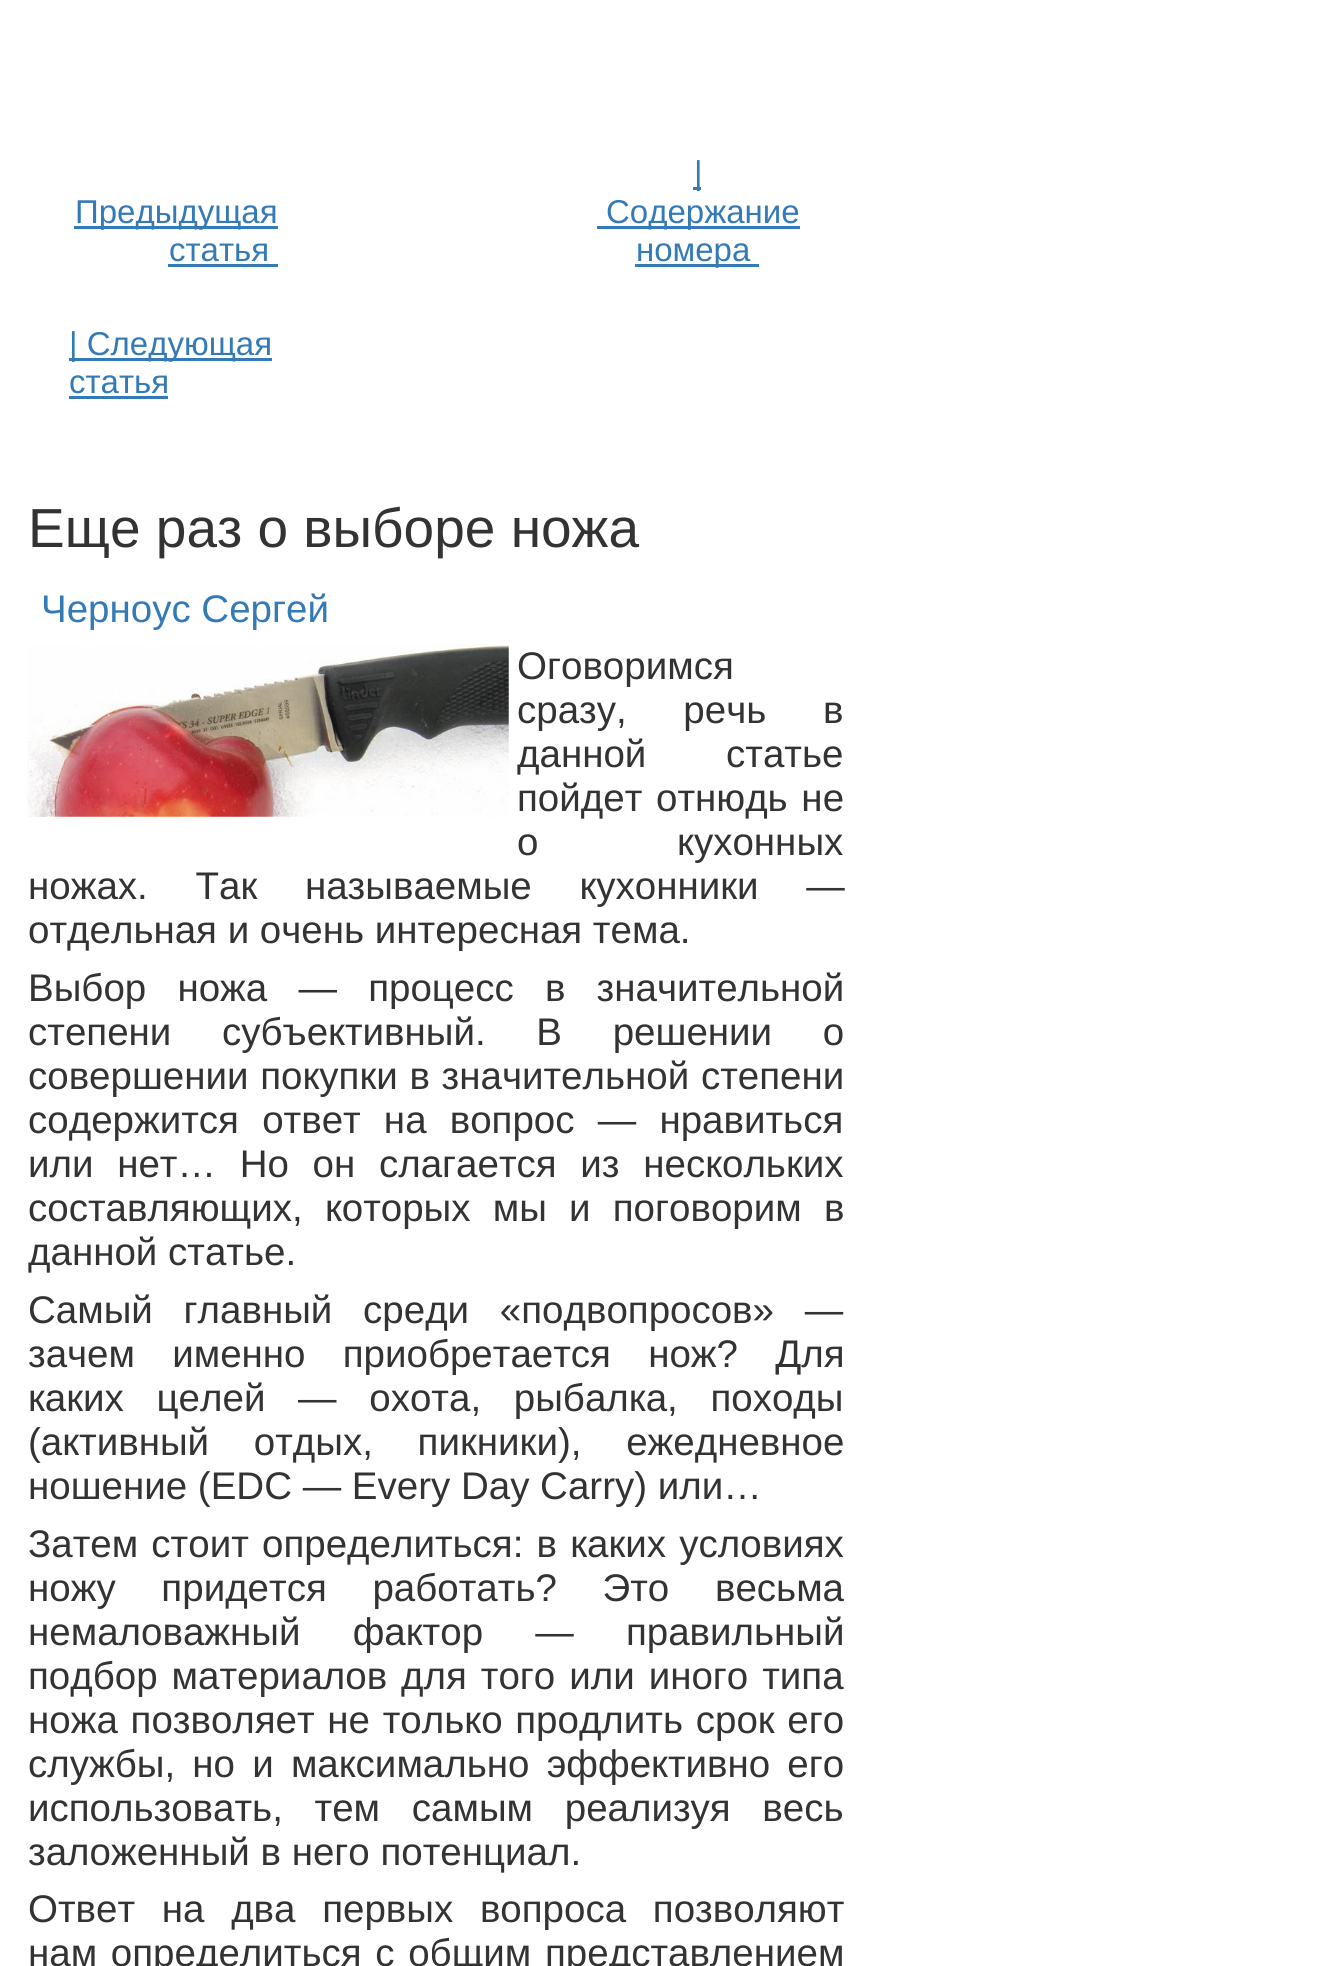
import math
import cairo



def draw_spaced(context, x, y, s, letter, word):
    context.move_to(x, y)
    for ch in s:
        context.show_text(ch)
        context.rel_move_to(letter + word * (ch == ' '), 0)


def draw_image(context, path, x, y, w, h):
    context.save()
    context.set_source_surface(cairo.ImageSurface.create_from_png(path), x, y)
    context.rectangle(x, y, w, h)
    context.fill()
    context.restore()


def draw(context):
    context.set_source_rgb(1, 1, 1)
    context.paint()
    context.set_source_rgb(51 / 255, 122 / 255, 183 / 255)
    context.rectangle(74, 226, 204, 3)
    context.fill()
    context.rectangle(168, 264, 110, 3)
    context.fill()
    context.rectangle(693, 187, 8, 3)
    context.fill()
    context.rectangle(597, 226, 203, 3)
    context.fill()
    context.rectangle(635, 264, 124, 3)
    context.fill()
    context.rectangle(69, 358, 203, 3)
    context.fill()
    context.rectangle(69, 396, 99, 3)
    context.fill()
    draw_image(context, "images/1.png", 27, 644, 482, 173)
    context.select_font_face("Liberation Sans")
    context.set_font_size(33)
    context.move_to(75, 223)
    context.show_text("Предыдущая")
    context.move_to(169, 261)
    context.show_text("статья")
    context.move_to(694, 184)
    context.show_text("|")
    context.move_to(606, 223)
    context.show_text("Содержание")
    context.move_to(636, 261)
    context.show_text("номера")
    context.move_to(69, 355)
    context.show_text("| Следующая")
    context.move_to(69, 393)
    context.show_text("статья")
    context.set_font_size(55)
    context.set_source_rgb(51 / 255, 51 / 255, 51 / 255)
    context.move_to(28, 547)
    context.show_text("Еще раз о выборе ножа")
    context.set_font_size(38.5)
    context.set_source_rgb(51 / 255, 122 / 255, 183 / 255)
    context.move_to(41, 622)
    context.show_text("Черноус Сергей")
    context.set_source_rgb(51 / 255, 51 / 255, 51 / 255)
    context.move_to(517, 679)
    context.show_text("Оговоримся")
    draw_spaced(context, 517, 723, "сразу, речь в", 0, 46)
    draw_spaced(context, 517, 767, "данной статье", 0, 69)
    draw_spaced(context, 517, 811, "пойдет отнюдь не", 0, 3)
    draw_spaced(context, 517, 855, "о кухонных", 0, 128)
    draw_spaced(context, 28, 899, "ножах. Так называемые кухонники —", 0, 37)
    context.move_to(28, 943)
    context.show_text("отдельная и очень интересная тема.")
    draw_spaced(context, 28, 1001, "Выбор ножа — процесс в значительной", 0, 20.5)
    draw_spaced(context, 28, 1045, "степени субъективный. В решении о", 0, 40)
    draw_spaced(context, 28, 1089, "совершении покупки в значительной степени", 0, 1)
    draw_spaced(context, 28, 1133, "содержится ответ на вопрос — нравиться", 0, 12.5)
    draw_spaced(context, 28, 1177, "или нет… Но он слагается из нескольких", 0, 13)
    draw_spaced(context, 28, 1221, "составляющих, которых мы и поговорим в", 0, 11.5)
    context.move_to(28, 1265)
    context.show_text("данной статье.")
    draw_spaced(context, 28, 1323, "Самый главный среди «подвопросов» —", 0, 20)
    draw_spaced(context, 28, 1367, "зачем именно приобретается нож? Для", 0, 26.5)
    draw_spaced(context, 28, 1411, "каких целей — охота, рыбалка, походы", 0, 22)
    draw_spaced(context, 28, 1455, "(активный отдых, пикники), ежедневное", 0, 34)
    context.move_to(28, 1499)
    context.show_text("ношение (EDC — Every Day Carry) или…")
    draw_spaced(context, 28, 1557, "Затем стоит определиться: в каких условиях", 0, 2.5)
    draw_spaced(context, 28, 1601, "ножу придется работать? Это весьма", 0, 35)
    draw_spaced(context, 28, 1645, "немаловажный фактор — правильный", 0, 41.5)
    draw_spaced(context, 28, 1689, "подбор материалов для того или иного типа", 0, 3.25)
    draw_spaced(context, 28, 1733, "ножа позволяет не только продлить срок его", 0, 2)
    draw_spaced(context, 28, 1777, "службы, но и максимально эффективно его", 0, 6.5)
    draw_spaced(context, 28, 1821, "использовать, тем самым реализуя весь", 0, 21)
    context.move_to(28, 1865)
    context.show_text("заложенный в него потенциал.")
    draw_spaced(context, 28, 1922, "Ответ на два первых вопроса позволяют", 0, 16)
    draw_spaced(context, 28, 1966, "нам определиться с общим представлением", 0, 3)


surface = cairo.ImageSurface(cairo.Format.RGB24, 1323, 1966)
context = cairo.Context(surface)
options = cairo.FontOptions()
options.set_hint_metrics(cairo.HintMetrics.OFF)
options.set_hint_style(cairo.HintStyle.NONE)
context.set_font_options(options)
context.set_miter_limit(4)
draw(context)
surface.write_to_png("out.png")
